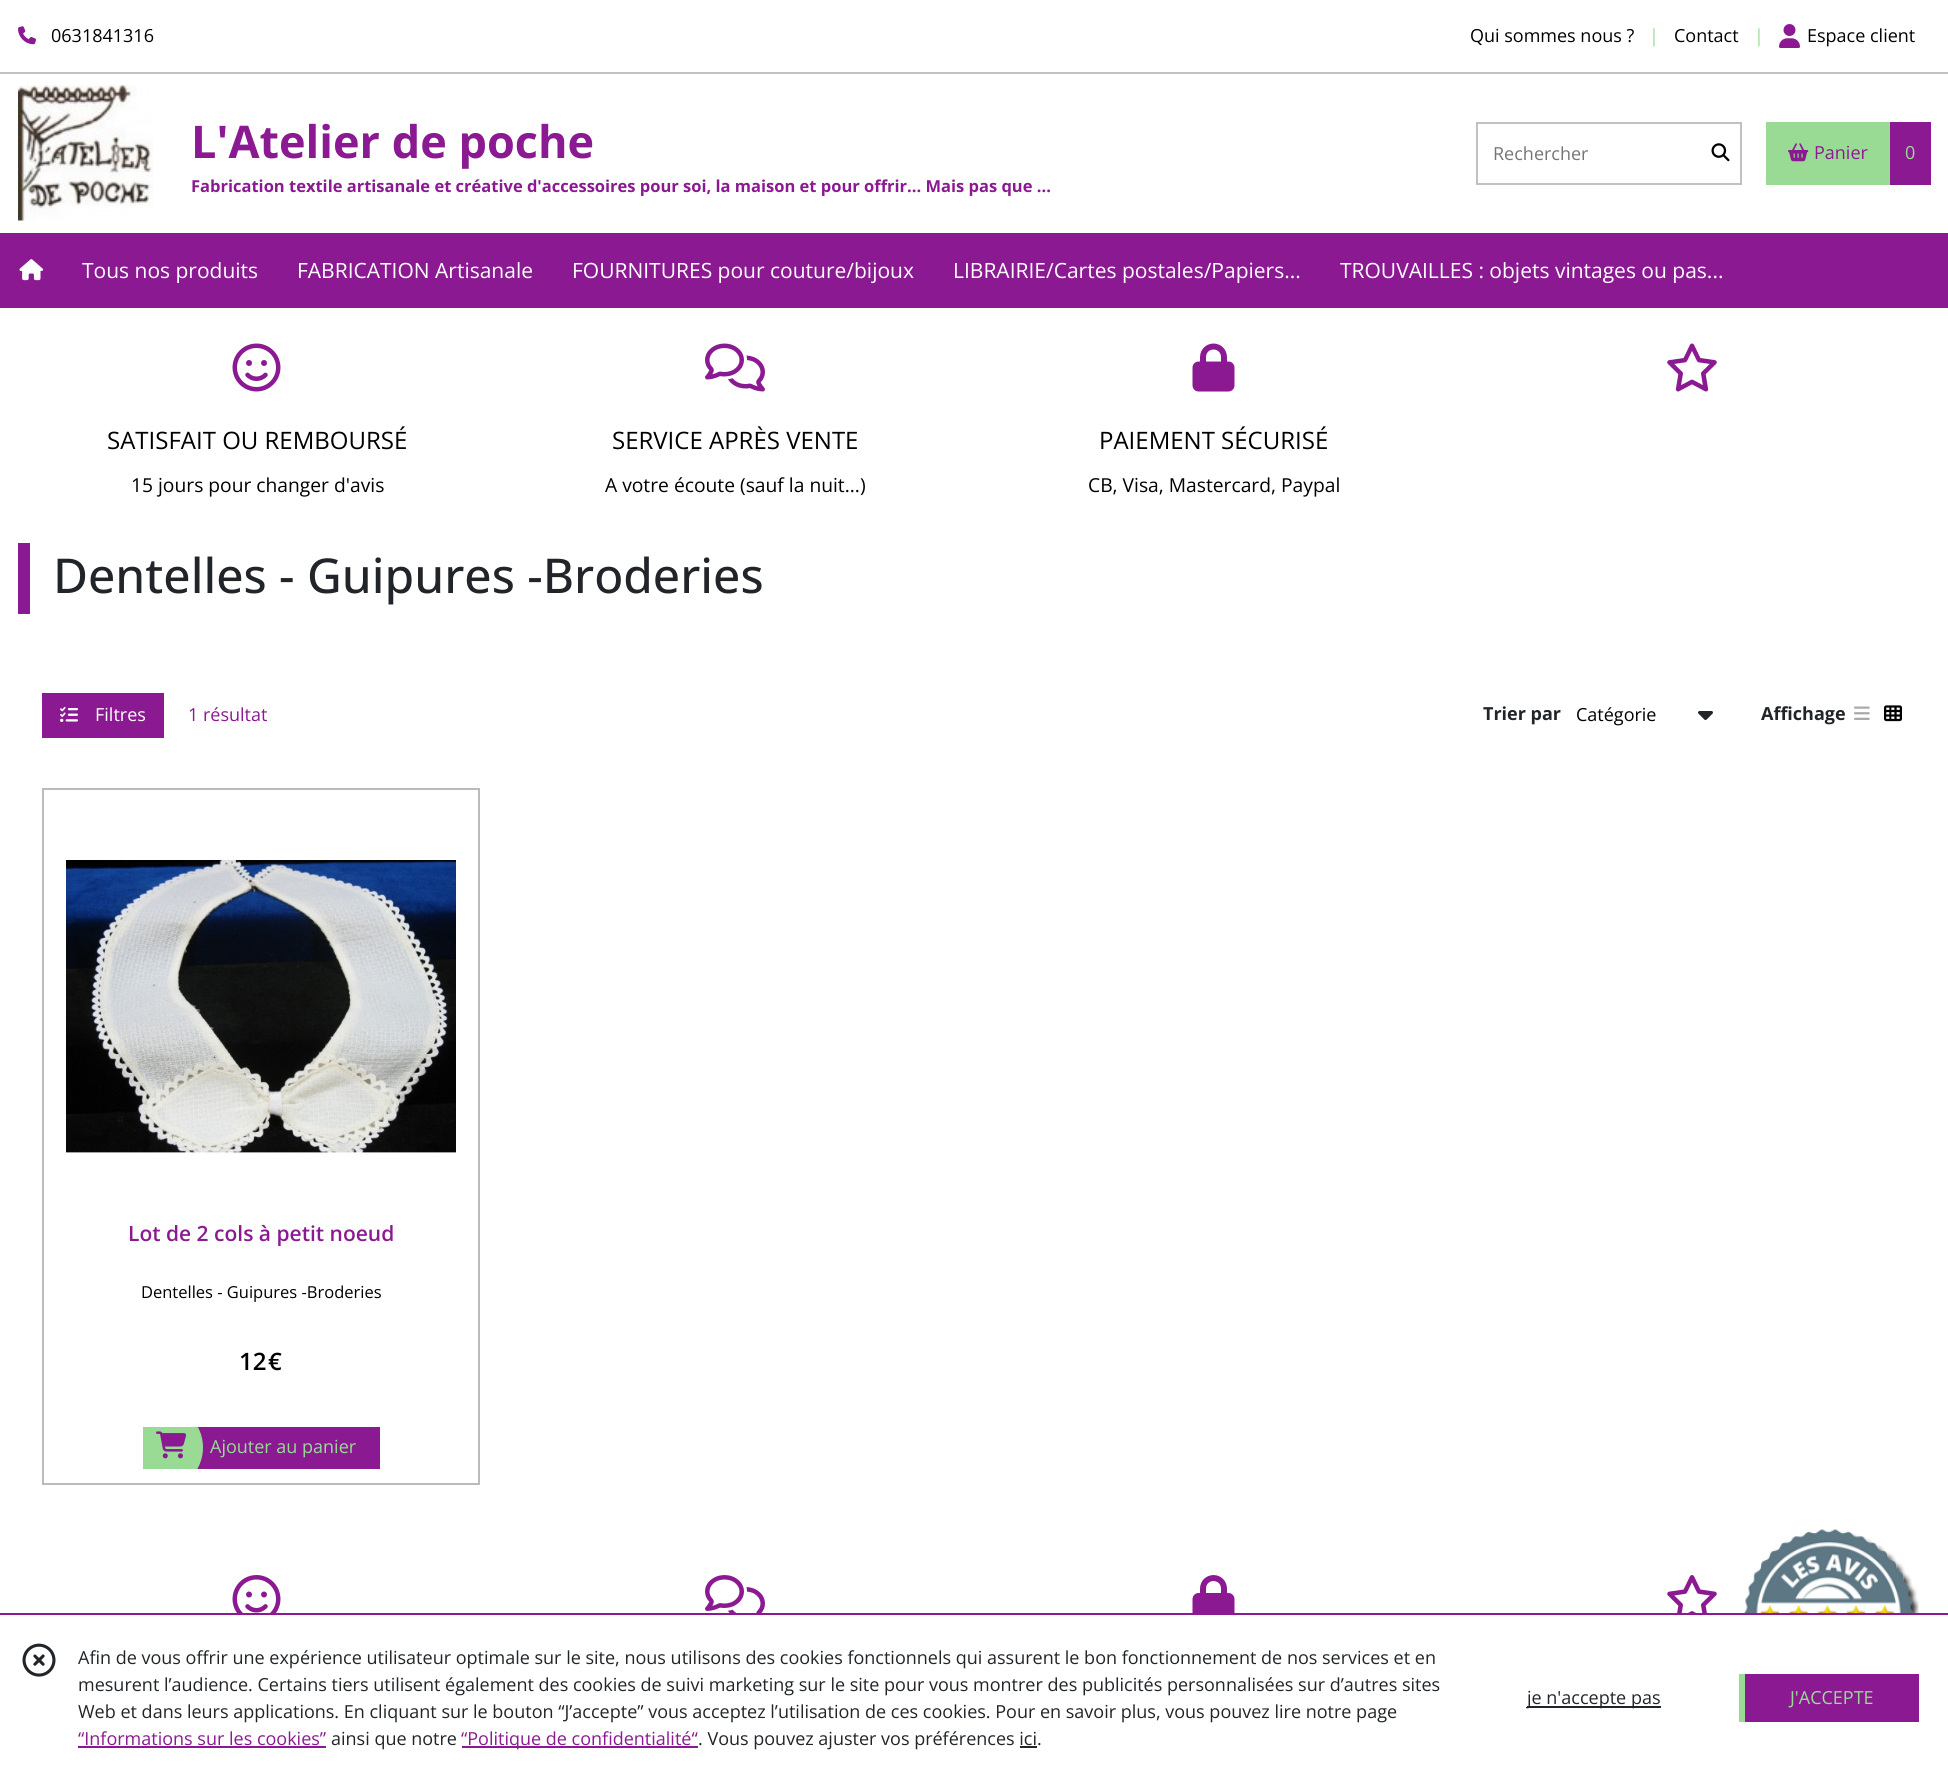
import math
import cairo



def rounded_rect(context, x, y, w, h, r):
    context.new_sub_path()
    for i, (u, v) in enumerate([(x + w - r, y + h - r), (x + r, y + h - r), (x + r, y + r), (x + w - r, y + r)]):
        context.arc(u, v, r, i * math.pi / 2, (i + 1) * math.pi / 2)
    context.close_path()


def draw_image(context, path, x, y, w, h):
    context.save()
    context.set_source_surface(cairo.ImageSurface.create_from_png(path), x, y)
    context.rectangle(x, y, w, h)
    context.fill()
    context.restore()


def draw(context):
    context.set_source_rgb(1, 1, 1)
    context.paint()
    context.set_source_rgb(193 / 255, 193 / 255, 193 / 255)
    context.rectangle(0, 72, 1948, 2)
    context.fill()
    draw_image(context, "images/1.png", 18, 26, 18, 19)
    draw_image(context, "images/2.png", 1779, 24, 21, 24)
    draw_image(context, "images/3.png", 18, 85, 135, 136)
    context.rectangle(1477, 123, 264, 61)
    context.stroke()
    draw_image(context, "images/4.png", 1711, 143, 19, 19)
    context.set_source_rgb(153 / 255, 219 / 255, 149 / 255)
    context.rectangle(1766, 122, 124, 63)
    context.fill()
    draw_image(context, "images/5.png", 1788, 143, 21, 19)
    context.set_source_rgb(139 / 255, 26 / 255, 146 / 255)
    context.rectangle(1890, 122, 41, 63)
    context.fill()
    context.rectangle(0, 233, 1948, 75)
    context.fill()
    draw_image(context, "images/6.png", 19, 259, 25, 22)
    draw_image(context, "images/7.png", 1667, 343, 50, 49)
    draw_image(context, "images/8.png", 232, 343, 49, 49)
    draw_image(context, "images/9.png", 705, 343, 60, 49)
    draw_image(context, "images/10.png", 1192, 343, 43, 49)
    context.rectangle(18, 543, 12, 71)
    context.fill()
    context.rectangle(42, 693, 122, 45)
    context.fill()
    draw_image(context, "images/11.png", 60, 706, 18, 16)
    draw_image(context, "images/12.png", 1698, 711, 15, 9)
    draw_image(context, "images/13.png", 1854, 706, 16, 14)
    draw_image(context, "images/14.png", 1884, 705, 18, 17)
    context.rectangle(43, 789, 436, 695)
    context.set_source_rgb(187 / 255, 187 / 255, 187 / 255)
    context.stroke()
    draw_image(context, "images/15.png", 66, 859, 390, 296)
    context.set_source_rgb(139 / 255, 26 / 255, 146 / 255)
    context.rectangle(197, 1427, 183, 42)
    context.fill()
    context.save()
    context.rectangle(143, 1427, 237, 42)
    context.clip()
    context.set_source_rgb(153 / 255, 219 / 255, 149 / 255)
    rounded_rect(context, 114, 1404, 89, 87, 43.5)
    context.fill()
    context.restore()
    draw_image(context, "images/16.png", 156, 1431, 31, 28)
    draw_image(context, "images/17.png", 232, 1575, 49, 38)
    draw_image(context, "images/18.png", 705, 1575, 60, 38)
    draw_image(context, "images/19.png", 1192, 1575, 43, 38)
    draw_image(context, "images/20.png", 1667, 1575, 50, 38)
    draw_image(context, "images/21.png", 1744, 1529, 175, 84)
    context.rectangle(0, 1613, 1948, 2)
    context.fill()
    draw_image(context, "images/22.png", 22, 1643, 34, 34)
    context.rectangle(78, 1746, 248, 2)
    context.fill()
    context.rectangle(462, 1746, 236, 2)
    context.fill()
    context.set_source_rgb(33 / 255, 37 / 255, 41 / 255)
    context.rectangle(1020, 1746, 17, 2)
    context.fill()
    context.rectangle(1527, 1706, 134, 2)
    context.fill()
    context.set_source_rgb(139 / 255, 26 / 255, 146 / 255)
    context.rectangle(1745, 1674, 174, 48)
    context.fill()
    context.set_source_rgb(153 / 255, 219 / 255, 149 / 255)
    context.rectangle(1739, 1674, 6, 48)
    context.fill()
    context.select_font_face("Open Sans")
    context.set_font_size(18)
    context.set_source_rgb(0, 0, 0)
    context.move_to(51, 42)
    context.show_text("0631841316")
    context.move_to(1470, 42)
    context.show_text("Qui sommes nous ?")
    context.set_source_rgb(153 / 255, 219 / 255, 149 / 255)
    context.move_to(1649, 42)
    context.show_text("|")
    context.set_source_rgb(0, 0, 0)
    context.move_to(1674, 42)
    context.show_text("Contact")
    context.set_source_rgb(153 / 255, 219 / 255, 149 / 255)
    context.move_to(1754, 42)
    context.show_text("|")
    context.set_source_rgb(0, 0, 0)
    context.move_to(1807, 42)
    context.show_text("Espace client")
    context.select_font_face("Open Sans", cairo.FontSlant.NORMAL, cairo.FontWeight.BOLD)
    context.set_font_size(45)
    context.set_source_rgb(139 / 255, 26 / 255, 146 / 255)
    context.move_to(191, 158)
    context.show_text("L'Atelier de poche")
    context.set_font_size(16.5)
    context.move_to(191, 192)
    context.show_text("Fabrication textile artisanale et créative d'accessoires pour soi, la maison et pour offrir... Mais pas que ...")
    context.select_font_face("Open Sans")
    context.set_font_size(18)
    context.set_source_rgb(117 / 255, 117 / 255, 117 / 255)
    context.move_to(1493, 160)
    context.show_text("Rechercher")
    context.set_source_rgb(139 / 255, 26 / 255, 146 / 255)
    context.move_to(1814, 159)
    context.show_text("Panier")
    context.set_source_rgb(153 / 255, 219 / 255, 149 / 255)
    context.move_to(1905, 159)
    context.show_text("0")
    context.set_font_size(21)
    context.set_source_rgb(1, 1, 1)
    context.move_to(82, 278)
    context.show_text("Tous nos produits")
    context.move_to(297, 278)
    context.show_text("FABRICATION Artisanale")
    context.move_to(572, 278)
    context.show_text("FOURNITURES pour couture/bijoux")
    context.move_to(953, 278)
    context.show_text("LIBRAIRIE/Cartes postales/Papiers...")
    context.move_to(1340, 278)
    context.show_text("TROUVAILLES : objets vintages ou pas...")
    context.set_font_size(24)
    context.set_source_rgb(0, 0, 0)
    context.move_to(107, 449)
    context.show_text("SATISFAIT OU REMBOURSÉ")
    context.set_font_size(19.25)
    context.move_to(131, 492)
    context.show_text("15 jours pour changer d'avis")
    context.set_font_size(24)
    context.move_to(612, 449)
    context.show_text("SERVICE APRÈS VENTE")
    context.set_font_size(19.25)
    context.move_to(605, 492)
    context.show_text("A votre écoute (sauf la nuit...)")
    context.set_font_size(24)
    context.move_to(1099, 449)
    context.show_text("PAIEMENT SÉCURISÉ")
    context.set_font_size(19.25)
    context.move_to(1088, 492)
    context.show_text("CB, Visa, Mastercard, Paypal")
    context.select_font_face("Open Sans Medium")
    context.set_font_size(48)
    context.set_source_rgb(33 / 255, 37 / 255, 41 / 255)
    context.move_to(53, 593)
    context.show_text("Dentelles - Guipures -Broderies")
    context.select_font_face("Open Sans")
    context.set_font_size(18)
    context.set_source_rgb(1, 1, 1)
    context.move_to(95, 721)
    context.show_text("Filtres")
    context.set_source_rgb(139 / 255, 26 / 255, 146 / 255)
    context.move_to(188, 721)
    context.show_text("1 résultat")
    context.select_font_face("Open Sans", cairo.FontSlant.NORMAL, cairo.FontWeight.BOLD)
    context.set_source_rgb(33 / 255, 37 / 255, 41 / 255)
    context.move_to(1483, 720)
    context.show_text("Trier par")
    context.select_font_face("Open Sans")
    context.set_source_rgb(0, 0, 0)
    context.move_to(1576, 721)
    context.show_text("Catégorie")
    context.select_font_face("Open Sans", cairo.FontSlant.NORMAL, cairo.FontWeight.BOLD)
    context.set_source_rgb(33 / 255, 37 / 255, 41 / 255)
    context.move_to(1761, 720)
    context.show_text("Affichage")
    context.select_font_face("Open Sans SemiBold")
    context.set_font_size(21)
    context.set_source_rgb(139 / 255, 26 / 255, 146 / 255)
    context.move_to(128, 1241)
    context.show_text("Lot de 2 cols à petit noeud")
    context.select_font_face("Open Sans")
    context.set_font_size(16.5)
    context.set_source_rgb(0, 0, 0)
    context.move_to(141, 1298)
    context.show_text("Dentelles - Guipures -Broderies")
    context.select_font_face("Open Sans SemiBold")
    context.set_font_size(24)
    context.move_to(239, 1370)
    context.show_text("12")
    context.move_to(268, 1370)
    context.show_text("€")
    context.select_font_face("Open Sans")
    context.set_font_size(18)
    context.set_source_rgb(153 / 255, 219 / 255, 149 / 255)
    context.move_to(210, 1453)
    context.show_text("Ajouter au panier")
    context.set_source_rgb(33 / 255, 37 / 255, 41 / 255)
    context.move_to(78, 1664)
    context.show_text("Afin de vous offrir une expérience utilisateur optimale sur le site, nous utilisons des cookies fonctionnels qui assurent le bon fonctionnement de nos services et en")
    context.move_to(78, 1691)
    context.show_text("mesurent l’audience. Certains tiers utilisent également des cookies de suivi marketing sur le site pour vous montrer des publicités personnalisées sur d’autres sites")
    context.move_to(78, 1718)
    context.show_text("Web et dans leurs applications. En cliquant sur le bouton “J’accepte” vous acceptez l’utilisation de ces cookies. Pour en savoir plus, vous pouvez lire notre page")
    context.set_source_rgb(139 / 255, 26 / 255, 146 / 255)
    context.move_to(78, 1745)
    context.show_text("“Informations sur les cookies”")
    context.set_source_rgb(33 / 255, 37 / 255, 41 / 255)
    context.move_to(331, 1745)
    context.show_text("ainsi que notre")
    context.set_source_rgb(139 / 255, 26 / 255, 146 / 255)
    context.move_to(461, 1745)
    context.show_text("“Politique de confidentialité“")
    context.set_source_rgb(33 / 255, 37 / 255, 41 / 255)
    context.move_to(698, 1745)
    context.show_text(". Vous pouvez ajuster vos préférences ici.")
    context.move_to(1527, 1704)
    context.show_text("je n'accepte pas")
    context.set_source_rgb(153 / 255, 219 / 255, 149 / 255)
    context.move_to(1790, 1704)
    context.show_text("J'ACCEPTE")


surface = cairo.ImageSurface(cairo.Format.RGB24, 1948, 1782)
context = cairo.Context(surface)
options = cairo.FontOptions()
options.set_hint_metrics(cairo.HintMetrics.OFF)
options.set_hint_style(cairo.HintStyle.NONE)
context.set_font_options(options)
context.set_miter_limit(4)
draw(context)
surface.write_to_png("out.png")
